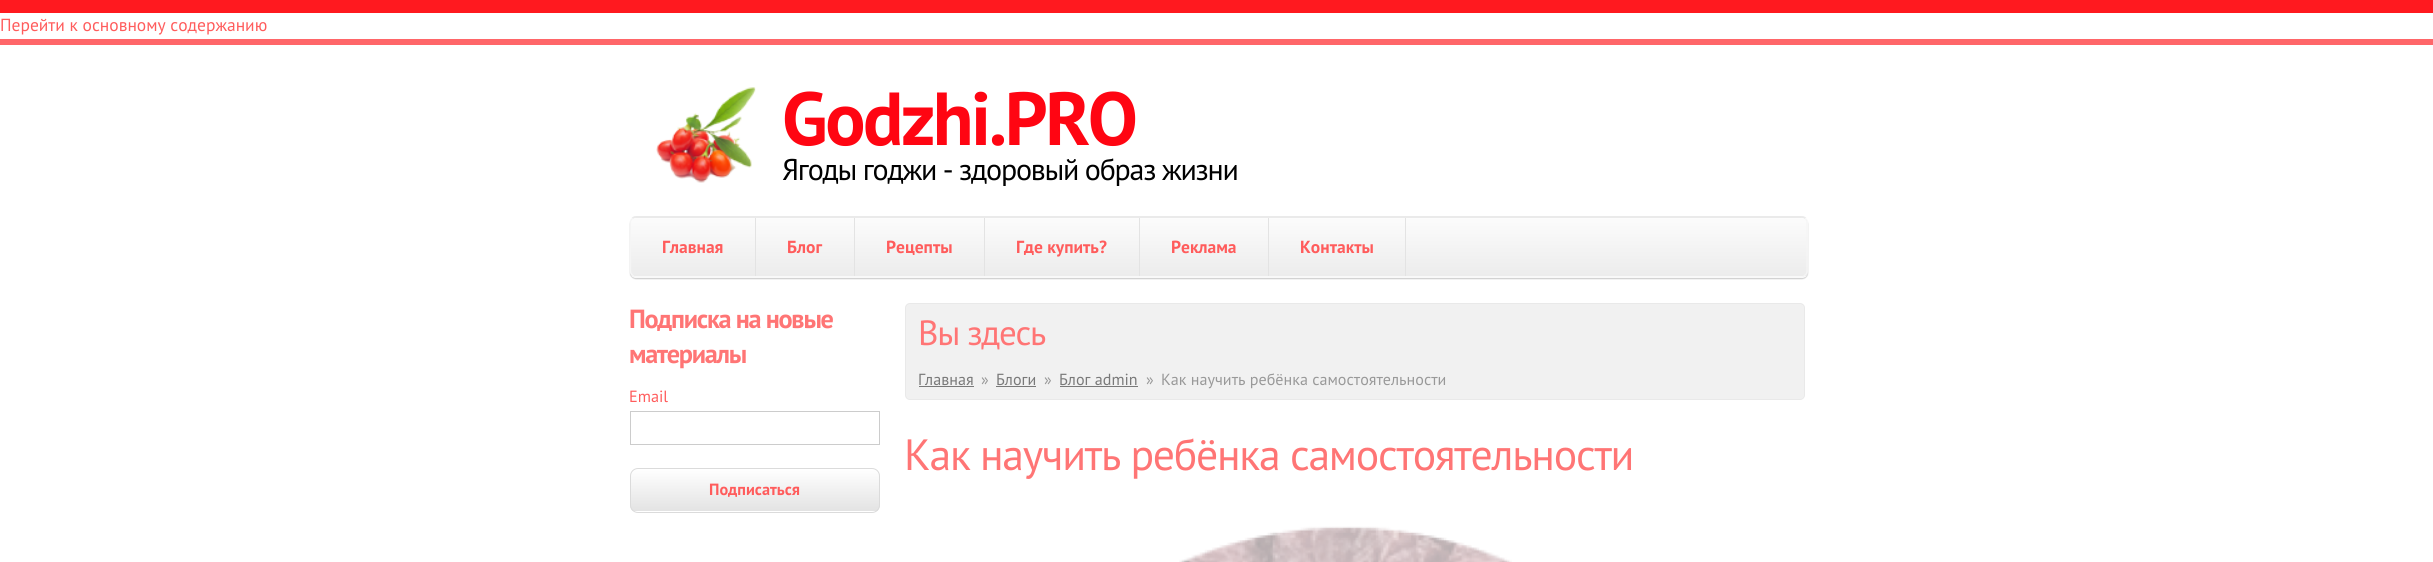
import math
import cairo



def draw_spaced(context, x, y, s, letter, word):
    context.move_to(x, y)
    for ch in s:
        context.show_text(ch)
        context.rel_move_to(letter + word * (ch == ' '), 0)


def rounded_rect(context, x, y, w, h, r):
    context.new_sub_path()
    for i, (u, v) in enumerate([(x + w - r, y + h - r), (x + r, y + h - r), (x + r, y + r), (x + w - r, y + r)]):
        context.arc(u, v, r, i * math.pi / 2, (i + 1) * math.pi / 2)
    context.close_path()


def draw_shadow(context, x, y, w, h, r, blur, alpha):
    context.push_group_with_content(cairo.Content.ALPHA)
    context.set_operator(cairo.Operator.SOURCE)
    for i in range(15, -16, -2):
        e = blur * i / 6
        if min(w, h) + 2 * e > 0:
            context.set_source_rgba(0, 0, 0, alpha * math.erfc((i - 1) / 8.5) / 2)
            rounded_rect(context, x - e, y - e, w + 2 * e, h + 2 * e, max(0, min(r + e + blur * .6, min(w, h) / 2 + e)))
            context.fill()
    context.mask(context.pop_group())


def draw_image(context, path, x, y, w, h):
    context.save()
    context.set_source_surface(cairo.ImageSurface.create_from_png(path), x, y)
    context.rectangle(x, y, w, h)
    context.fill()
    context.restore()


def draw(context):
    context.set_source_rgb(1, 1, 1)
    context.paint()
    context.set_source_rgb(1, 25 / 255, 31 / 255)
    context.rectangle(0, 0, 2433, 13)
    context.fill()
    context.set_source_rgb(1, 102 / 255, 105 / 255)
    context.rectangle(0, 39, 2433, 6)
    context.fill()
    draw_image(context, "images/1.png", 656, 87, 100, 96)
    context.set_source_rgb(0, 0, 0)
    draw_shadow(context, 630, 218, 1178, 61, 6, 0.5, 0.2)
    context.save()
    rounded_rect(context, 630, 216, 1178, 62, 6)
    context.clip()
    gradient = cairo.LinearGradient(1219, 159, 1219, 218)
    gradient.add_color_stop_rgba(0, 252 / 255, 252 / 255, 252 / 255, 1)
    gradient.add_color_stop_rgba(1, 236 / 255, 236 / 255, 236 / 255, 1)
    context.set_source(gradient)
    context.rectangle(630, 216, 1178, 2)
    context.fill()
    gradient = cairo.LinearGradient(1219, 217, 1219, 276)
    gradient.add_color_stop_rgba(0, 252 / 255, 252 / 255, 252 / 255, 1)
    gradient.add_color_stop_rgba(1, 236 / 255, 236 / 255, 236 / 255, 1)
    context.set_source(gradient)
    context.rectangle(630, 218, 1178, 58)
    context.fill()
    gradient = cairo.LinearGradient(1219, 276, 1219, 335)
    gradient.add_color_stop_rgba(0, 252 / 255, 252 / 255, 252 / 255, 1)
    gradient.add_color_stop_rgba(1, 236 / 255, 236 / 255, 236 / 255, 1)
    context.set_source(gradient)
    context.rectangle(630, 276, 1178, 2)
    context.fill()
    context.restore()
    context.new_path()
    context.move_to(632.5, 218.5)
    context.curve_to(633.5, 217.5, 635, 217, 636, 217)
    context.line_to(1801, 217)
    context.curve_to(1802.5, 217, 1804, 217.5, 1805, 218.5)
    context.set_source_rgb(234 / 255, 234 / 255, 234 / 255)
    context.set_line_width(1.2)
    context.stroke()
    context.new_path()
    context.move_to(1805, 218.5)
    context.curve_to(1806.5, 219.5, 1807, 221, 1807, 222.5)
    context.line_to(1807, 271)
    context.curve_to(1807, 272.5, 1806.5, 274, 1805, 275)
    context.curve_to(1804, 276.5, 1802.5, 277, 1801, 277)
    context.line_to(636, 277)
    context.curve_to(635, 277, 633.5, 276.5, 632.5, 275)
    context.curve_to(631, 274, 630.5, 272.5, 630.5, 271)
    context.line_to(630.5, 222.5)
    context.curve_to(630.5, 221, 631, 219.5, 632.5, 218.5)
    context.set_source_rgb(245 / 255, 245 / 255, 245 / 255)
    context.stroke()
    context.set_source_rgb(227 / 255, 227 / 255, 227 / 255)
    context.rectangle(755, 218, 1, 58)
    context.fill()
    context.rectangle(854, 218, 1, 58)
    context.fill()
    context.rectangle(984, 218, 1, 58)
    context.fill()
    context.rectangle(1139, 218, 1, 58)
    context.fill()
    context.rectangle(1268, 218, 1, 58)
    context.fill()
    context.rectangle(1405, 218, 1, 58)
    context.fill()
    context.rectangle(630.5, 411.5, 249, 33)
    context.set_source_rgb(204 / 255, 204 / 255, 204 / 255)
    context.set_line_width(1)
    context.stroke()
    context.save()
    rounded_rect(context, 630, 468, 250, 45, 8)
    context.clip()
    gradient = cairo.LinearGradient(755, 469, 755, 511)
    gradient.add_color_stop_rgba(0, 1, 1, 1, 1)
    gradient.add_color_stop_rgba(1, 227 / 255, 227 / 255, 227 / 255, 1)
    context.set_source(gradient)
    context.rectangle(630, 469, 250, 42)
    context.fill()
    context.restore()
    rounded_rect(context, 630.5, 468.5, 249, 44, 7.5)
    context.set_source_rgb(219 / 255, 219 / 255, 219 / 255)
    context.stroke()
    context.set_source_rgb(241 / 255, 241 / 255, 241 / 255)
    rounded_rect(context, 905.5, 303.5, 899, 96, 4.5)
    context.fill_preserve()
    context.set_source_rgb(233 / 255, 233 / 255, 233 / 255)
    context.stroke()
    context.set_source_rgb(121 / 255, 121 / 255, 121 / 255)
    context.rectangle(919, 386, 55, 1)
    context.fill()
    context.rectangle(996, 386, 40, 1)
    context.fill()
    context.rectangle(1060, 386, 78, 1)
    context.fill()
    draw_image(context, "images/2.png", 1179, 526, 333, 36)
    context.select_font_face("PT Sans")
    context.set_font_size(17.5)
    context.set_source_rgb(1, 92 / 255, 92 / 255)
    context.move_to(0, 31)
    context.show_text("Перейти к основному содержанию")
    context.select_font_face("PT Sans", cairo.FontSlant.NORMAL, cairo.FontWeight.BOLD)
    context.set_font_size(75)
    context.set_source_rgb(1, 5 / 255, 18 / 255)
    draw_spaced(context, 782, 145, "Godzhi.PRO", -2.5, 0)
    context.select_font_face("PT Sans")
    context.set_font_size(30)
    context.set_source_rgb(0, 0, 0)
    draw_spaced(context, 782, 180, "Ягоды годжи - здоровый образ жизни", -1.25, 0)
    context.select_font_face("PT Sans", cairo.FontSlant.NORMAL, cairo.FontWeight.BOLD)
    context.set_font_size(17.5)
    context.set_source_rgb(1, 92 / 255, 92 / 255)
    context.move_to(662, 253)
    context.show_text("Главная")
    context.move_to(787, 253)
    context.show_text("Блог")
    context.move_to(886, 253)
    context.show_text("Рецепты")
    context.move_to(1016, 253)
    context.show_text("Где купить?")
    context.move_to(1171, 253)
    context.show_text("Реклама")
    context.move_to(1300, 253)
    context.show_text("Контакты")
    context.set_font_size(26.25)
    context.set_source_rgb(1, 117 / 255, 117 / 255)
    draw_spaced(context, 629, 328, "Подписка на новые", -1.25, 0)
    draw_spaced(context, 629, 363, "материалы", -1.25, 0)
    context.select_font_face("PT Sans")
    context.set_font_size(16.25)
    context.set_source_rgb(1, 92 / 255, 92 / 255)
    context.move_to(629, 402)
    context.show_text("Email")
    context.select_font_face("PT Sans", cairo.FontSlant.NORMAL, cairo.FontWeight.BOLD)
    context.move_to(709, 495)
    context.show_text("Подписаться")
    context.select_font_face("PT Sans")
    context.set_font_size(35)
    context.set_source_rgb(1, 117 / 255, 117 / 255)
    draw_spaced(context, 918, 345, "Вы здесь", -1.25, 0)
    context.set_font_size(16.1)
    context.set_source_rgb(121 / 255, 121 / 255, 121 / 255)
    context.move_to(918, 385)
    context.show_text("Главная")
    context.set_source_rgb(153 / 255, 153 / 255, 153 / 255)
    context.move_to(981, 385)
    context.show_text("»")
    context.set_source_rgb(121 / 255, 121 / 255, 121 / 255)
    context.move_to(996, 385)
    context.show_text("Блоги")
    context.set_source_rgb(153 / 255, 153 / 255, 153 / 255)
    context.move_to(1044, 385)
    context.show_text("»")
    context.set_source_rgb(121 / 255, 121 / 255, 121 / 255)
    context.move_to(1059, 385)
    context.show_text("Блог admin")
    context.set_source_rgb(153 / 255, 153 / 255, 153 / 255)
    context.move_to(1146, 385)
    context.show_text("»")
    context.move_to(1161, 385)
    context.show_text("Как научить ребёнка самостоятельности")
    context.set_font_size(43.75)
    context.set_source_rgb(1, 117 / 255, 117 / 255)
    draw_spaced(context, 904, 470, "Как научить ребёнка самостоятельности", -1.25, 0)


surface = cairo.ImageSurface(cairo.Format.RGB24, 2433, 562)
context = cairo.Context(surface)
options = cairo.FontOptions()
options.set_hint_metrics(cairo.HintMetrics.OFF)
options.set_hint_style(cairo.HintStyle.NONE)
context.set_font_options(options)
context.set_miter_limit(4)
draw(context)
surface.write_to_png("out.png")
